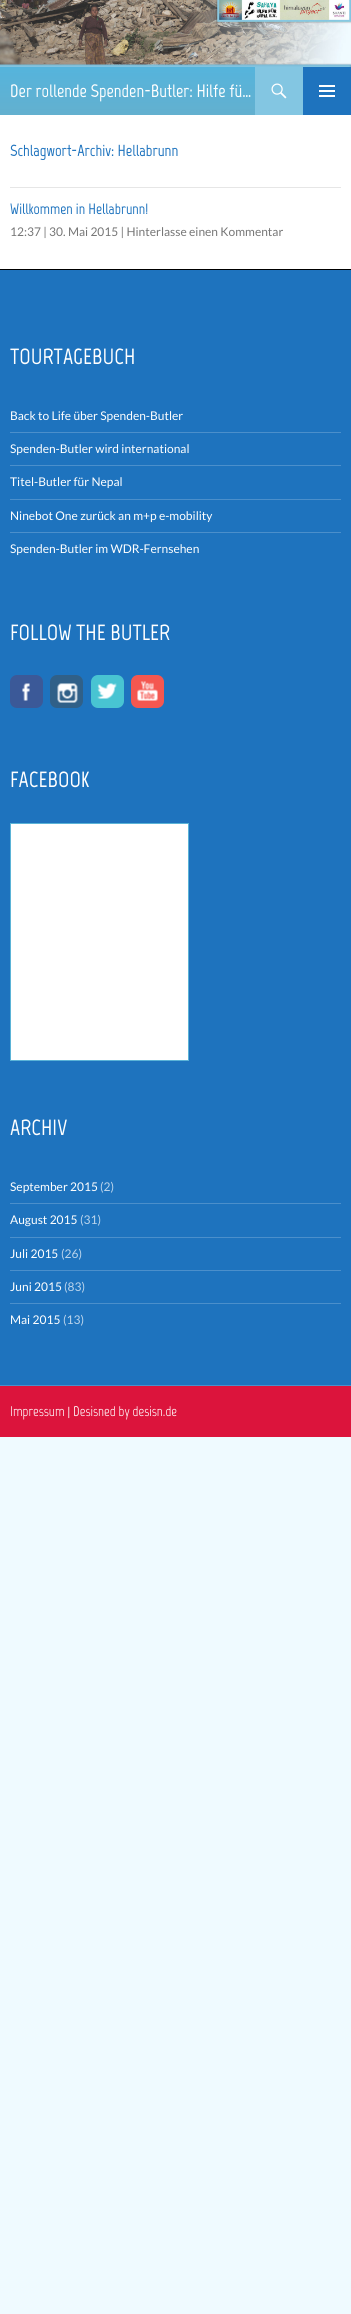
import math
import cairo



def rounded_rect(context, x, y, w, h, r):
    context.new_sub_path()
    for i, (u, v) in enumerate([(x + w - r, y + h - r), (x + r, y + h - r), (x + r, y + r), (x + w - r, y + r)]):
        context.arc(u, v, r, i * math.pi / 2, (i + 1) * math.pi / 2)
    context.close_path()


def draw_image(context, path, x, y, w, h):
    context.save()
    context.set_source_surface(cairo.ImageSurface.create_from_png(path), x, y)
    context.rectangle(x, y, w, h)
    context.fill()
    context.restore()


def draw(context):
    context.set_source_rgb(239 / 255, 250 / 255, 1)
    context.paint()
    context.set_source_rgb(1, 1, 1)
    context.rectangle(0, 115, 351, 154)
    context.fill()
    draw_image(context, "images/1.png", 0, 0, 351, 67)
    gradient = cairo.LinearGradient(176, 67, 176, 115)
    gradient.add_color_stop_rgba(0, 85 / 255, 180 / 255, 220 / 255, 1)
    gradient.add_color_stop_rgba(1, 99 / 255, 176 / 255, 207 / 255, 1)
    context.set_source(gradient)
    context.rectangle(0, 67, 255, 48)
    context.fill()
    context.set_source_rgb(131 / 255, 198 / 255, 226 / 255)
    context.rectangle(255, 67, 48, 48)
    context.fill()
    draw_image(context, "images/2.png", 271, 83, 16, 16)
    context.set_source_rgb(30 / 255, 115 / 255, 190 / 255)
    context.rectangle(303, 67, 48, 48)
    context.fill()
    draw_image(context, "images/3.png", 319, 85, 16, 12)
    context.set_source_rgb(230 / 255, 230 / 255, 230 / 255)
    context.rectangle(10, 187, 331, 1)
    context.fill()
    context.set_source_rgb(30 / 255, 115 / 255, 190 / 255)
    context.rectangle(0, 270, 351, 1115)
    context.fill()
    context.set_source_rgb(0, 0, 0)
    context.rectangle(0, 269, 351, 1)
    context.fill()
    context.set_source_rgb(75 / 255, 143 / 255, 203 / 255)
    context.rectangle(0, 1385, 351, 1)
    context.fill()
    context.rectangle(10, 432, 331, 1)
    context.fill()
    context.rectangle(10, 465, 331, 1)
    context.fill()
    context.rectangle(10, 499, 331, 1)
    context.fill()
    context.rectangle(10, 532, 331, 1)
    context.fill()
    context.set_source_rgb(59 / 255, 89 / 255, 152 / 255)
    rounded_rect(context, 10, 675, 33, 33, 7)
    context.fill()
    draw_image(context, "images/4.png", 22, 683, 8, 18)
    context.set_source_rgb(48 / 255, 96 / 255, 136 / 255)
    rounded_rect(context, 50, 675, 33, 33, 7)
    context.fill()
    draw_image(context, "images/5.png", 57, 683, 21, 20)
    context.set_source_rgb(72 / 255, 196 / 255, 210 / 255)
    rounded_rect(context, 91, 675, 33, 33, 7)
    context.fill()
    draw_image(context, "images/6.png", 97, 683, 20, 16)
    context.set_source_rgb(244 / 255, 87 / 255, 80 / 255)
    rounded_rect(context, 131, 675, 33, 33, 7)
    context.fill()
    draw_image(context, "images/7.png", 137, 681, 21, 20)
    context.set_source_rgb(1, 1, 1)
    context.rectangle(10.5, 823.5, 178, 237)
    context.fill_preserve()
    context.set_source_rgb(90 / 255, 179 / 255, 215 / 255)
    context.set_line_width(1)
    context.stroke()
    context.set_source_rgb(75 / 255, 143 / 255, 203 / 255)
    context.rectangle(10, 1203, 331, 1)
    context.fill()
    context.rectangle(10, 1237, 331, 1)
    context.fill()
    context.rectangle(10, 1270, 331, 1)
    context.fill()
    context.rectangle(10, 1303, 331, 1)
    context.fill()
    context.set_source_rgb(220 / 255, 20 / 255, 60 / 255)
    context.rectangle(0, 1386, 351, 51)
    context.fill()
    context.select_font_face("Marvel", cairo.FontSlant.NORMAL, cairo.FontWeight.BOLD)
    context.set_font_size(18)
    context.set_source_rgb(1, 1, 1)
    context.move_to(10, 97)
    context.show_text("Der rollende Spenden-Butler: Hilfe fü…")
    context.set_font_size(16)
    context.set_source_rgb(30 / 255, 115 / 255, 190 / 255)
    context.move_to(10, 156)
    context.show_text("Schlagwort-Archiv: Hellabrunn")
    context.set_font_size(15)
    context.move_to(10, 214)
    context.show_text("Willkommen in Hellabrunn!")
    context.select_font_face("Lato")
    context.set_font_size(12)
    context.set_source_rgb(118 / 255, 118 / 255, 118 / 255)
    context.move_to(10, 236)
    context.show_text("12:37 | 30. Mai 2015 | Hinterlasse einen Kommentar")
    context.select_font_face("Marvel", cairo.FontSlant.NORMAL, cairo.FontWeight.BOLD)
    context.set_font_size(22)
    context.set_source_rgb(1, 1, 1)
    context.move_to(10, 364)
    context.show_text("TOURTAGEBUCH")
    context.select_font_face("Lato")
    context.set_font_size(12)
    context.move_to(10, 420)
    context.show_text("Back to Life über Spenden-Butler")
    context.move_to(10, 453)
    context.show_text("Spenden-Butler wird international")
    context.move_to(10, 486)
    context.show_text("Titel-Butler für Nepal")
    context.move_to(10, 520)
    context.show_text("Ninebot One zurück an m+p e-mobility")
    context.move_to(10, 553)
    context.show_text("Spenden-Butler im WDR-Fernsehen")
    context.select_font_face("Marvel", cairo.FontSlant.NORMAL, cairo.FontWeight.BOLD)
    context.set_font_size(22)
    context.move_to(10, 640)
    context.show_text("FOLLOW THE BUTLER")
    context.move_to(10, 787)
    context.show_text("FACEBOOK")
    context.move_to(10, 1135)
    context.show_text("ARCHIV")
    context.select_font_face("Lato")
    context.set_font_size(12)
    context.move_to(10, 1191)
    context.show_text("September 2015")
    context.set_source_rgb(188 / 255, 213 / 255, 236 / 255)
    context.move_to(100, 1191)
    context.show_text("(2)")
    context.set_source_rgb(1, 1, 1)
    context.move_to(10, 1224)
    context.show_text("August 2015")
    context.set_source_rgb(188 / 255, 213 / 255, 236 / 255)
    context.move_to(80, 1224)
    context.show_text("(31)")
    context.set_source_rgb(1, 1, 1)
    context.move_to(10, 1258)
    context.show_text("Juli 2015")
    context.set_source_rgb(188 / 255, 213 / 255, 236 / 255)
    context.move_to(61, 1258)
    context.show_text("(26)")
    context.set_source_rgb(1, 1, 1)
    context.move_to(10, 1291)
    context.show_text("Juni 2015")
    context.set_source_rgb(188 / 255, 213 / 255, 236 / 255)
    context.move_to(64, 1291)
    context.show_text("(83)")
    context.set_source_rgb(1, 1, 1)
    context.move_to(10, 1324)
    context.show_text("Mai 2015")
    context.set_source_rgb(188 / 255, 213 / 255, 236 / 255)
    context.move_to(63, 1324)
    context.show_text("(13)")
    context.select_font_face("Marvel")
    context.set_font_size(14)
    context.set_source_rgb(1, 1, 1)
    context.move_to(10, 1416)
    context.show_text("Impressum")
    context.select_font_face("Lato")
    context.set_font_size(12)
    context.move_to(67, 1416)
    context.show_text("|")
    context.select_font_face("Marvel")
    context.set_font_size(14)
    context.move_to(73, 1416)
    context.show_text("Desisned by desisn.de")


surface = cairo.ImageSurface(cairo.Format.RGB24, 351, 2314)
context = cairo.Context(surface)
options = cairo.FontOptions()
options.set_hint_metrics(cairo.HintMetrics.OFF)
options.set_hint_style(cairo.HintStyle.NONE)
context.set_font_options(options)
context.set_miter_limit(4)
draw(context)
surface.write_to_png("out.png")
